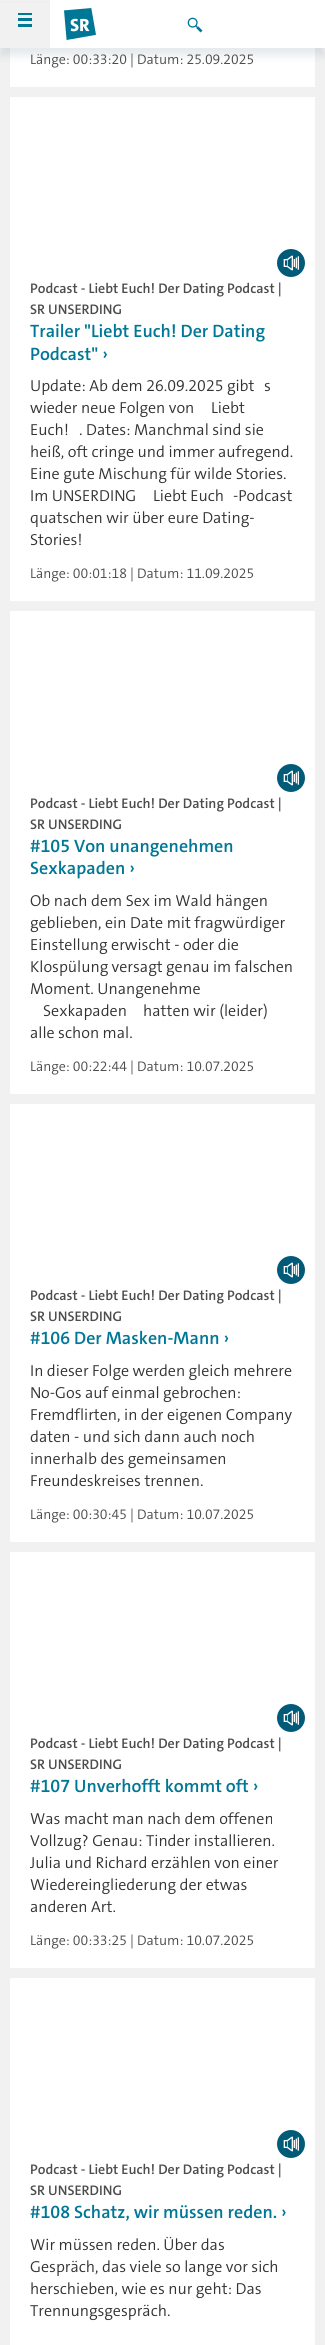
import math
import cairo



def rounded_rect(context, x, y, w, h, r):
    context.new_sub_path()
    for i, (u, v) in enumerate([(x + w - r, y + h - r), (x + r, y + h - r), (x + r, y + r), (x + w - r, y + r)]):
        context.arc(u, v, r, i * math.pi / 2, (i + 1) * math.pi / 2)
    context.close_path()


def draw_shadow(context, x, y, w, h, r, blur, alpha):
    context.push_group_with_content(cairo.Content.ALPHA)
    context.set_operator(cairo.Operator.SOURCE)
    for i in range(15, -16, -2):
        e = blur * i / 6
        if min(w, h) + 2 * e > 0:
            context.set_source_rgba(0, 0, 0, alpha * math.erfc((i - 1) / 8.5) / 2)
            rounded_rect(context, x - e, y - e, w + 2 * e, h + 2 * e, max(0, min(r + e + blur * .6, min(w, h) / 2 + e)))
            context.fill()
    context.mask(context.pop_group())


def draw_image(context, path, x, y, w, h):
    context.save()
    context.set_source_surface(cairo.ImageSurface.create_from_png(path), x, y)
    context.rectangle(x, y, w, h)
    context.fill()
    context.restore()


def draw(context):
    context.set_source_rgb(241 / 255, 241 / 255, 241 / 255)
    context.paint()
    context.set_source_rgb(1, 1, 1)
    context.rectangle(10, 48, 305, 39)
    context.fill()
    context.set_source_rgb(9 / 255, 46 / 255, 73 / 255)
    draw_shadow(context, 0, 8, 325, 48, 0, 4, 0.1)
    context.set_source_rgb(1, 1, 1)
    context.rectangle(50, 0, 275, 48)
    context.fill()
    draw_image(context, "images/1.png", 64, 8, 32, 32)
    draw_image(context, "images/2.png", 187, 17, 16, 16)
    context.set_source_rgb(241 / 255, 241 / 255, 241 / 255)
    context.rectangle(0, 3, 50, 45)
    context.fill()
    context.set_source_rgb(0, 119 / 255, 150 / 255)
    context.rectangle(18, 13, 14, 2)
    context.fill()
    context.rectangle(18, 18, 14, 3)
    context.fill()
    context.rectangle(18, 24, 14, 3)
    context.fill()
    context.set_source_rgb(1, 1, 1)
    context.rectangle(10, 97, 305, 504)
    context.fill()
    context.set_source_rgb(0, 90 / 255, 120 / 255)
    context.arc(291, 263, 14, 0, 2 * math.pi)
    context.fill()
    draw_image(context, "images/3.png", 283, 255, 16, 16)
    context.set_source_rgb(1, 1, 1)
    context.rectangle(10, 611, 305, 483)
    context.fill()
    context.set_source_rgb(0, 90 / 255, 120 / 255)
    context.arc(291, 778, 14, 0, 2 * math.pi)
    context.fill()
    draw_image(context, "images/3.png", 283, 770, 16, 16)
    context.set_source_rgb(1, 1, 1)
    context.rectangle(10, 1104, 305, 438)
    context.fill()
    context.set_source_rgb(0, 90 / 255, 120 / 255)
    context.arc(291, 1270, 14, 0, 2 * math.pi)
    context.fill()
    draw_image(context, "images/3.png", 283, 1262, 16, 16)
    context.set_source_rgb(1, 1, 1)
    context.rectangle(10, 1552, 305, 416)
    context.fill()
    context.set_source_rgb(0, 90 / 255, 120 / 255)
    context.arc(291, 1718, 14, 0, 2 * math.pi)
    context.fill()
    draw_image(context, "images/3.png", 283, 1710, 16, 16)
    context.set_source_rgb(1, 1, 1)
    context.rectangle(10, 1978, 305, 367)
    context.fill()
    context.set_source_rgb(0, 90 / 255, 120 / 255)
    context.arc(291, 2144, 14, 0, 2 * math.pi)
    context.fill()
    draw_image(context, "images/3.png", 283, 2136, 16, 16)
    context.select_font_face("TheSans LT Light")
    context.set_font_size(14)
    context.set_source_rgb(77 / 255, 76 / 255, 76 / 255)
    context.move_to(30, 64)
    context.show_text("Länge: 00:33:20 | Datum: 25.09.2025")
    context.select_font_face("TheSans LT SemiBold")
    context.move_to(30, 293)
    context.show_text("Podcast - Liebt Euch! Der Dating Podcast |")
    context.move_to(30, 314)
    context.show_text("SR UNSERDING")
    context.set_font_size(18)
    context.set_source_rgb(0, 119 / 255, 150 / 255)
    context.move_to(30, 337)
    context.show_text("Trailer \"Liebt Euch! Der Dating")
    context.move_to(30, 360)
    context.show_text("Podcast\" ›")
    context.select_font_face("TheSans LT Light")
    context.set_font_size(16)
    context.set_source_rgb(51 / 255, 51 / 255, 51 / 255)
    context.move_to(30, 391)
    context.show_text("Update: Ab dem 26.09.2025 gibt")
    context.move_to(264, 391)
    context.show_text("s")
    context.move_to(30, 413)
    context.show_text("wieder neue Folgen von")
    context.move_to(211, 413)
    context.show_text("Liebt")
    context.move_to(30, 435)
    context.show_text("Euch!")
    context.move_to(79, 435)
    context.show_text(". Dates: Manchmal sind sie")
    context.move_to(30, 457)
    context.show_text("heiß, oft cringe und immer aufregend.")
    context.move_to(30, 479)
    context.show_text("Eine gute Mischung für wilde Stories.")
    context.move_to(30, 501)
    context.show_text("Im UNSERDING")
    context.move_to(153, 501)
    context.show_text("Liebt Euch")
    context.move_to(233, 501)
    context.show_text("-Podcast")
    context.move_to(30, 523)
    context.show_text("quatschen wir über eure Dating-")
    context.move_to(30, 545)
    context.show_text("Stories!")
    context.set_font_size(14)
    context.set_source_rgb(77 / 255, 76 / 255, 76 / 255)
    context.move_to(30, 578)
    context.show_text("Länge: 00:01:18 | Datum: 11.09.2025")
    context.select_font_face("TheSans LT SemiBold")
    context.move_to(30, 808)
    context.show_text("Podcast - Liebt Euch! Der Dating Podcast |")
    context.move_to(30, 829)
    context.show_text("SR UNSERDING")
    context.set_font_size(18)
    context.set_source_rgb(0, 119 / 255, 150 / 255)
    context.move_to(30, 852)
    context.show_text("#105 Von unangenehmen")
    context.move_to(30, 874)
    context.show_text("Sexkapaden ›")
    context.select_font_face("TheSans LT Light")
    context.set_font_size(16)
    context.set_source_rgb(51 / 255, 51 / 255, 51 / 255)
    context.move_to(30, 906)
    context.show_text("Ob nach dem Sex im Wald hängen")
    context.move_to(30, 928)
    context.show_text("geblieben, ein Date mit fragwürdiger")
    context.move_to(30, 950)
    context.show_text("Einstellung erwischt - oder die")
    context.move_to(30, 972)
    context.show_text("Klospülung versagt genau im falschen")
    context.move_to(30, 994)
    context.show_text("Moment. Unangenehme")
    context.move_to(43, 1016)
    context.show_text("Sexkapaden")
    context.move_to(143, 1016)
    context.show_text("hatten wir (leider)")
    context.move_to(30, 1038)
    context.show_text("alle schon mal.")
    context.set_font_size(14)
    context.set_source_rgb(77 / 255, 76 / 255, 76 / 255)
    context.move_to(30, 1071)
    context.show_text("Länge: 00:22:44 | Datum: 10.07.2025")
    context.select_font_face("TheSans LT SemiBold")
    context.move_to(30, 1300)
    context.show_text("Podcast - Liebt Euch! Der Dating Podcast |")
    context.move_to(30, 1321)
    context.show_text("SR UNSERDING")
    context.set_font_size(18)
    context.set_source_rgb(0, 119 / 255, 150 / 255)
    context.move_to(30, 1344)
    context.show_text("#106 Der Masken-Mann ›")
    context.select_font_face("TheSans LT Light")
    context.set_font_size(16)
    context.set_source_rgb(51 / 255, 51 / 255, 51 / 255)
    context.move_to(30, 1376)
    context.show_text("In dieser Folge werden gleich mehrere")
    context.move_to(30, 1398)
    context.show_text("No-Gos auf einmal gebrochen:")
    context.move_to(30, 1420)
    context.show_text("Fremdflirten, in der eigenen Company")
    context.move_to(30, 1442)
    context.show_text("daten - und sich dann auch noch")
    context.move_to(30, 1464)
    context.show_text("innerhalb des gemeinsamen")
    context.move_to(30, 1486)
    context.show_text("Freundeskreises trennen.")
    context.set_font_size(14)
    context.set_source_rgb(77 / 255, 76 / 255, 76 / 255)
    context.move_to(30, 1519)
    context.show_text("Länge: 00:30:45 | Datum: 10.07.2025")
    context.select_font_face("TheSans LT SemiBold")
    context.move_to(30, 1748)
    context.show_text("Podcast - Liebt Euch! Der Dating Podcast |")
    context.move_to(30, 1769)
    context.show_text("SR UNSERDING")
    context.set_font_size(18)
    context.set_source_rgb(0, 119 / 255, 150 / 255)
    context.move_to(30, 1792)
    context.show_text("#107 Unverhofft kommt oft ›")
    context.select_font_face("TheSans LT Light")
    context.set_font_size(16)
    context.set_source_rgb(51 / 255, 51 / 255, 51 / 255)
    context.move_to(30, 1824)
    context.show_text("Was macht man nach dem offenen")
    context.move_to(30, 1846)
    context.show_text("Vollzug? Genau: Tinder installieren.")
    context.move_to(30, 1868)
    context.show_text("Julia und Richard erzählen von einer")
    context.move_to(30, 1890)
    context.show_text("Wiedereingliederung der etwas")
    context.move_to(30, 1912)
    context.show_text("anderen Art.")
    context.set_font_size(14)
    context.set_source_rgb(77 / 255, 76 / 255, 76 / 255)
    context.move_to(30, 1945)
    context.show_text("Länge: 00:33:25 | Datum: 10.07.2025")
    context.select_font_face("TheSans LT SemiBold")
    context.move_to(30, 2174)
    context.show_text("Podcast - Liebt Euch! Der Dating Podcast |")
    context.move_to(30, 2195)
    context.show_text("SR UNSERDING")
    context.set_font_size(18)
    context.set_source_rgb(0, 119 / 255, 150 / 255)
    context.move_to(30, 2218)
    context.show_text("#108 Schatz, wir müssen reden. ›")
    context.select_font_face("TheSans LT Light")
    context.set_font_size(16)
    context.set_source_rgb(51 / 255, 51 / 255, 51 / 255)
    context.move_to(30, 2250)
    context.show_text("Wir müssen reden. Über das")
    context.move_to(30, 2272)
    context.show_text("Gespräch, das viele so lange vor sich")
    context.move_to(30, 2294)
    context.show_text("herschieben, wie es nur geht: Das")
    context.move_to(30, 2316)
    context.show_text("Trennungsgespräch.")


surface = cairo.ImageSurface(cairo.Format.RGB24, 325, 2345)
context = cairo.Context(surface)
options = cairo.FontOptions()
options.set_hint_metrics(cairo.HintMetrics.OFF)
options.set_hint_style(cairo.HintStyle.NONE)
context.set_font_options(options)
context.set_miter_limit(4)
draw(context)
surface.write_to_png("out.png")
